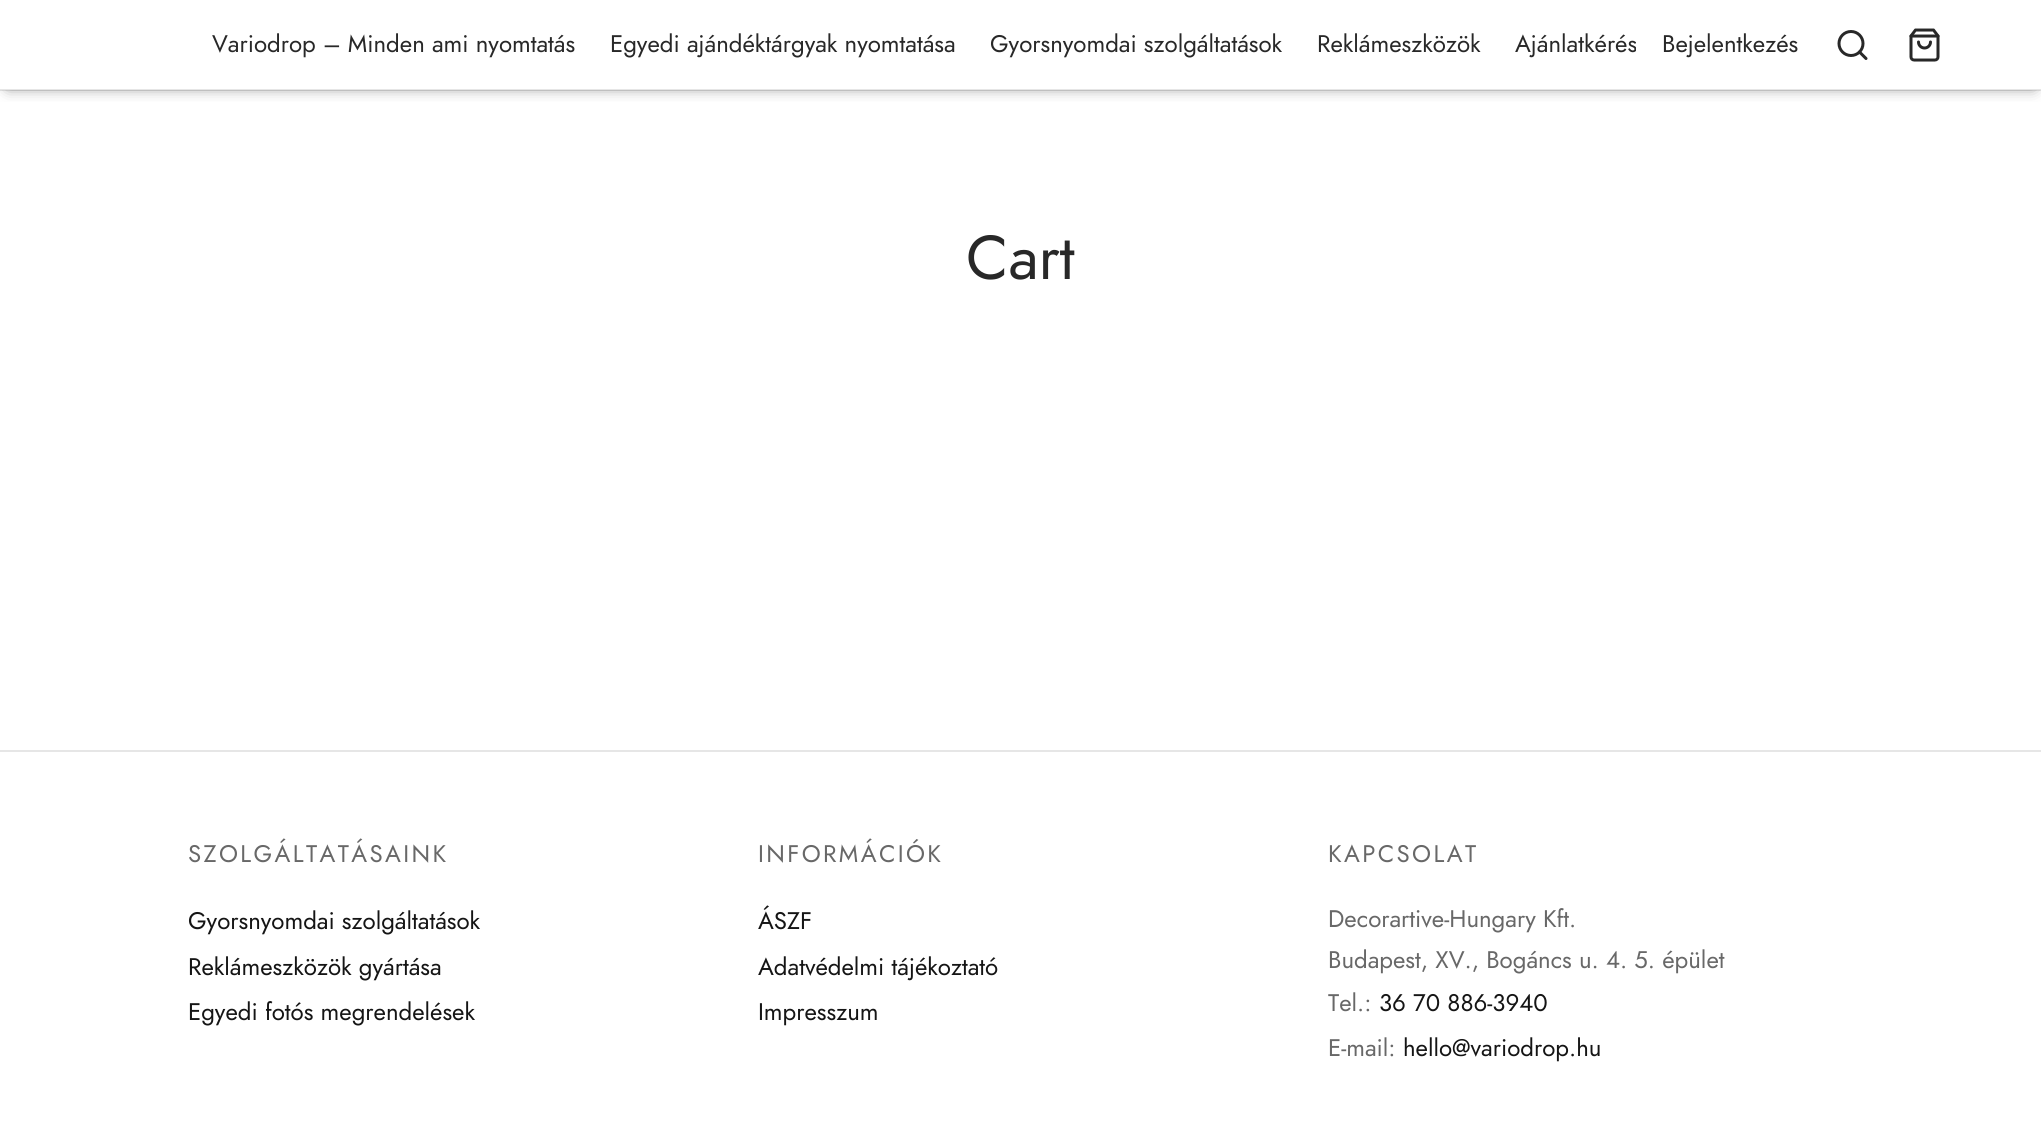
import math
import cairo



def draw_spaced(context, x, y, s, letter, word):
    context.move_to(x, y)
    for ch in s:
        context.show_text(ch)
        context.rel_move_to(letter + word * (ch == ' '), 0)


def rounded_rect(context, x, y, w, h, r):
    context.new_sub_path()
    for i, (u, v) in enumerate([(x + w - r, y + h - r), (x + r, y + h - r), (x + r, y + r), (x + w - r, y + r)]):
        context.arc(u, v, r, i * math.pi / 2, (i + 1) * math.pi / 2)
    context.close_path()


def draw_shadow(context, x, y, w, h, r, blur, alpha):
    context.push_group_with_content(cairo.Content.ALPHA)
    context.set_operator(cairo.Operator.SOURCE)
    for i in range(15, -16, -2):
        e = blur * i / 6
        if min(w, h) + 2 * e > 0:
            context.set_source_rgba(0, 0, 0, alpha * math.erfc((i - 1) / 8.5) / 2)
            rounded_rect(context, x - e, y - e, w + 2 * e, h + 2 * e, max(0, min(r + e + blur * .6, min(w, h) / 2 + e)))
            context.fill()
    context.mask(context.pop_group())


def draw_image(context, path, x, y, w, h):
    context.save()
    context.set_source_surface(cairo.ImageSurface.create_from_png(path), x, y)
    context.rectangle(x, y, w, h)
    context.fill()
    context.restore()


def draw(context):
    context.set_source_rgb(1, 1, 1)
    context.paint()
    context.save()
    context.rectangle(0, 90, 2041, 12)
    context.clip()
    context.set_source_rgb(128 / 255, 128 / 255, 128 / 255)
    draw_shadow(context, 8, 12, 2026, 75, 0, 7.5, 1)
    context.restore()
    context.arc(1851, 43.5, 12, 0, 2 * math.pi)
    context.set_source_rgb(40 / 255, 40 / 255, 40 / 255)
    context.set_line_width(3)
    context.stroke()
    context.new_path()
    context.move_to(1866, 58.5)
    context.line_to(1859.5, 52)
    context.set_line_cap(cairo.LineCap.ROUND)
    context.set_line_join(cairo.LineJoin.ROUND)
    context.stroke()
    draw_image(context, "images/1.png", 1909, 28, 31, 34)
    context.set_source_rgba(0, 0, 0, 0.1)
    context.rectangle(0, 89, 2041, 2)
    context.fill()
    context.set_source_rgb(230 / 255, 230 / 255, 230 / 255)
    context.rectangle(0, 750, 2041, 2)
    context.fill()
    context.select_font_face("Jost")
    context.set_font_size(24)
    context.set_source_rgb(40 / 255, 40 / 255, 40 / 255)
    context.move_to(212, 52)
    context.show_text("Variodrop – Minden ami nyomtatás")
    context.move_to(610, 52)
    context.show_text("Egyedi ajándéktárgyak nyomtatása")
    context.move_to(990, 52)
    context.show_text("Gyorsnyomdai szolgáltatások")
    context.move_to(1317, 52)
    context.show_text("Reklámeszközök")
    context.move_to(1515, 52)
    context.show_text("Ajánlatkérés")
    context.move_to(1662, 52)
    context.show_text("Bejelentkezés")
    context.set_font_size(62)
    context.move_to(966, 279)
    context.show_text("Cart")
    context.set_font_size(24)
    context.set_source_rgb(104 / 255, 104 / 255, 104 / 255)
    draw_spaced(context, 188, 862, "SZOLGÁLTATÁSAINK", 2.4, 0)
    context.set_source_rgb(21 / 255, 21 / 255, 21 / 255)
    context.move_to(188, 929)
    context.show_text("Gyorsnyomdai szolgáltatások")
    context.move_to(188, 975)
    context.show_text("Reklámeszközök gyártása")
    context.move_to(188, 1020)
    context.show_text("Egyedi fotós megrendelések")
    context.set_source_rgb(104 / 255, 104 / 255, 104 / 255)
    draw_spaced(context, 758, 862, "INFORMÁCIÓK", 2.4, 0)
    context.set_source_rgb(21 / 255, 21 / 255, 21 / 255)
    context.move_to(758, 929)
    context.show_text("ÁSZF")
    context.move_to(758, 975)
    context.show_text("Adatvédelmi tájékoztató")
    context.move_to(758, 1020)
    context.show_text("Impresszum")
    context.set_source_rgb(104 / 255, 104 / 255, 104 / 255)
    draw_spaced(context, 1328, 862, "KAPCSOLAT", 2.4, 0)
    context.move_to(1328, 927)
    context.show_text("Decorartive-Hungary Kft.")
    context.move_to(1328, 968)
    context.show_text("Budapest, XV., Bogáncs u. 4. 5. épület")
    context.move_to(1328, 1011)
    context.show_text("Tel.:")
    context.set_source_rgb(21 / 255, 21 / 255, 21 / 255)
    context.move_to(1379, 1011)
    context.show_text("36 70 886-3940")
    context.set_source_rgb(104 / 255, 104 / 255, 104 / 255)
    context.move_to(1328, 1056)
    context.show_text("E-mail:")
    context.set_source_rgb(21 / 255, 21 / 255, 21 / 255)
    context.move_to(1403, 1056)
    context.show_text("hello@variodrop.hu")


surface = cairo.ImageSurface(cairo.Format.RGB24, 2041, 1132)
context = cairo.Context(surface)
options = cairo.FontOptions()
options.set_hint_metrics(cairo.HintMetrics.OFF)
options.set_hint_style(cairo.HintStyle.NONE)
context.set_font_options(options)
context.set_miter_limit(4)
draw(context)
surface.write_to_png("out.png")
